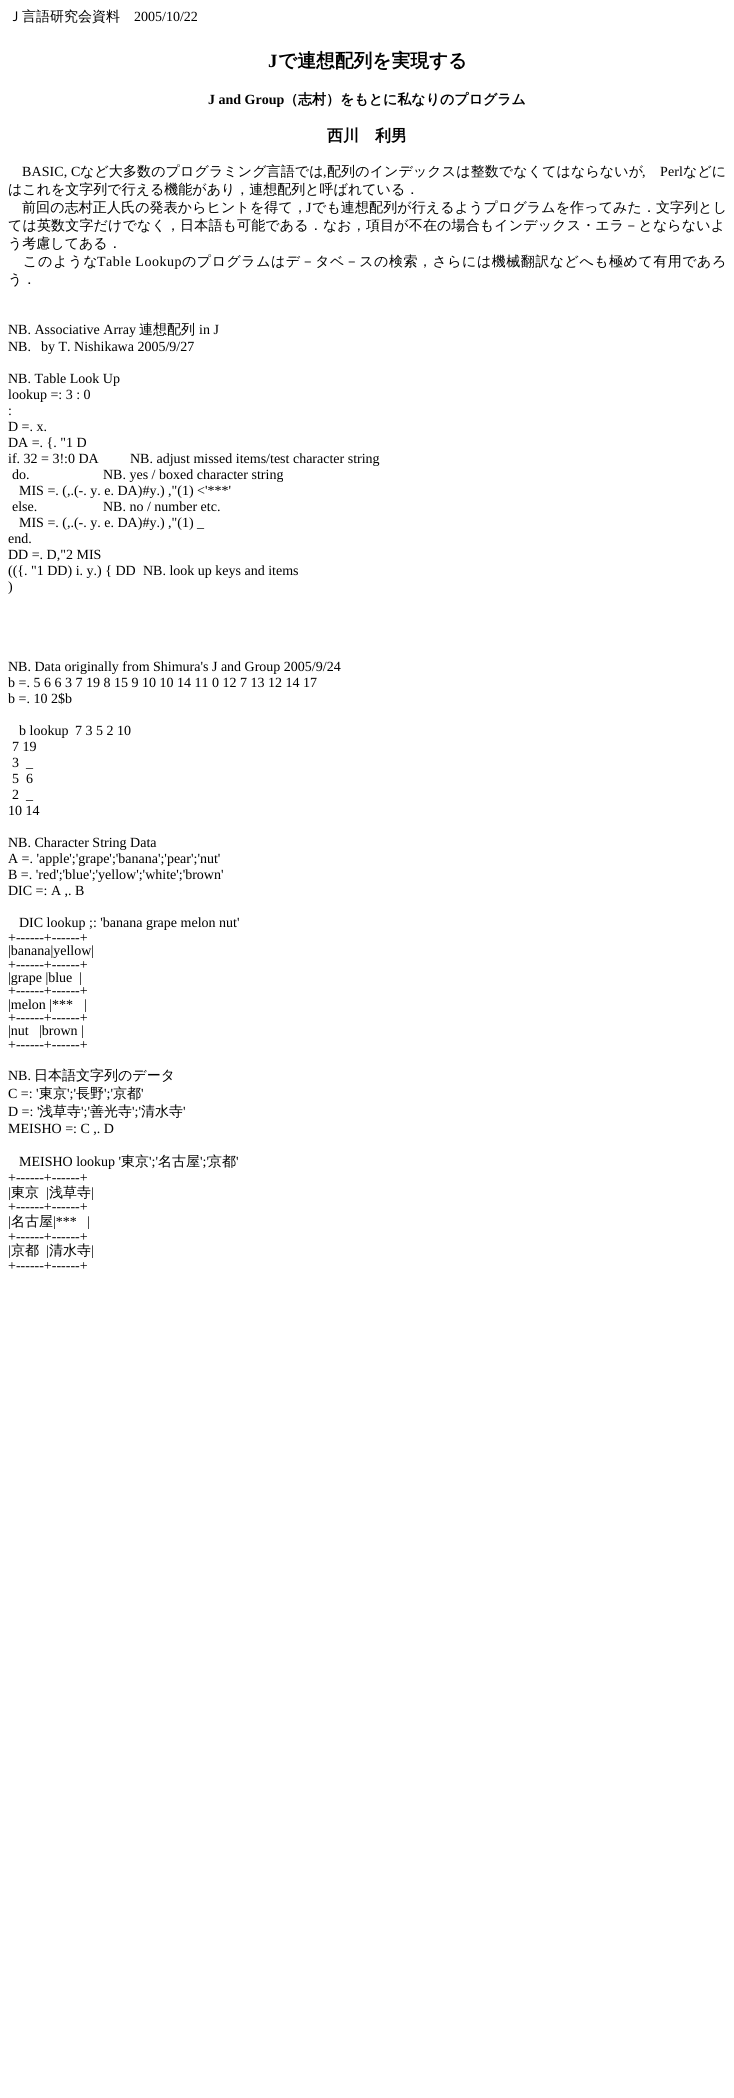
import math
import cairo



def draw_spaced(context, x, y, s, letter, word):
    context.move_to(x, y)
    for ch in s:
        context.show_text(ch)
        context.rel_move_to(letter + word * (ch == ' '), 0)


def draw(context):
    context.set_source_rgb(1, 1, 1)
    context.paint()
    context.select_font_face("WenQuanYi Zen Hei Medium")
    context.set_font_size(14)
    context.set_source_rgb(0, 0, 0)
    context.move_to(8, 21)
    context.show_text("Ｊ言語研究会資料")
    context.select_font_face("Liberation Serif")
    context.move_to(134, 21)
    context.show_text("2005/10/22")
    context.select_font_face("Liberation Serif", cairo.FontSlant.NORMAL, cairo.FontWeight.BOLD)
    context.set_font_size(18.75)
    context.move_to(268, 67)
    context.show_text("J")
    context.select_font_face("WenQuanYi Zen Hei", cairo.FontSlant.NORMAL, cairo.FontWeight.BOLD)
    context.move_to(278, 67)
    context.show_text("で連想配列を実現する")
    context.select_font_face("Liberation Serif", cairo.FontSlant.NORMAL, cairo.FontWeight.BOLD)
    context.set_font_size(14)
    context.move_to(208, 104)
    context.show_text("J and Group")
    context.select_font_face("WenQuanYi Zen Hei", cairo.FontSlant.NORMAL, cairo.FontWeight.BOLD)
    context.move_to(284, 104)
    context.show_text("（志村）をもとに私なりのプログラム")
    context.set_font_size(16)
    context.move_to(327, 141)
    context.show_text("西川　利男")
    context.select_font_face("Liberation Serif")
    context.set_font_size(14)
    draw_spaced(context, 22, 176, "BASIC, C", 0.1, 0)
    context.select_font_face("WenQuanYi Zen Hei Medium")
    draw_spaced(context, 80, 176, "など大多数のプログラミング言語では", 0.1, 0)
    context.select_font_face("Liberation Serif")
    draw_spaced(context, 323, 176, ",", 0.1, 0)
    context.select_font_face("WenQuanYi Zen Hei Medium")
    draw_spaced(context, 327, 176, "配列のインデックスは整数でなくてはならないが", 0.1, 0)
    context.select_font_face("Liberation Serif")
    draw_spaced(context, 642, 176, ",", 0.1, 0)
    draw_spaced(context, 660, 176, "Perl", 0.1, 0)
    context.select_font_face("WenQuanYi Zen Hei Medium")
    draw_spaced(context, 683, 176, "などに", 0.1, 0)
    context.move_to(8, 194)
    context.show_text("はこれを文字列で行える機能があり，連想配列と呼ばれている．")
    draw_spaced(context, 22, 212, "前回の志村正人氏の発表からヒントを得て，", 0.1, 0)
    context.select_font_face("Liberation Serif")
    draw_spaced(context, 306, 212, "J", 0.1, 0)
    context.select_font_face("WenQuanYi Zen Hei Medium")
    draw_spaced(context, 312, 212, "でも連想配列が行えるようプログラムを作ってみた．文字列とし", 0.1, 0)
    draw_spaced(context, 8, 230, "ては英数文字だけでなく，日本語も可能である．なお，項目が不在の場合もインデックス・エラ－とならないよ", 0.15, 0)
    context.move_to(8, 248)
    context.show_text("う考慮してある．")
    draw_spaced(context, 23, 266, "このような", 0.75, 0)
    context.select_font_face("Liberation Serif")
    draw_spaced(context, 97, 266, "Table Lookup", 0.5, 0)
    context.select_font_face("WenQuanYi Zen Hei Medium")
    draw_spaced(context, 182, 266, "のプログラムはデ－タベ－スの検索，さらには機械翻訳などへも極めて有用であろ", 0.5, 0)
    context.move_to(8, 284)
    context.show_text("う．")
    context.select_font_face("Liberation Serif")
    context.move_to(8, 334)
    context.show_text("NB. Associative Array")
    context.select_font_face("WenQuanYi Zen Hei Medium")
    context.move_to(139, 334)
    context.show_text("連想配列")
    context.select_font_face("Liberation Serif")
    context.move_to(199, 334)
    context.show_text("in J")
    context.move_to(8, 351)
    context.show_text("NB.")
    context.move_to(41, 351)
    context.show_text("by T. Nishikawa 2005/9/27")
    context.move_to(8, 383)
    context.show_text("NB. Table Look Up")
    context.move_to(8, 399)
    context.show_text("lookup =: 3 : 0")
    context.move_to(8, 415)
    context.show_text(":")
    context.move_to(8, 431)
    context.show_text("D =. x.")
    context.move_to(8, 447)
    context.show_text("DA =. {. \"1 D")
    context.move_to(8, 463)
    context.show_text("if. 32 = 3!:0 DA")
    context.move_to(130, 463)
    context.show_text("NB. adjust missed items/test character string")
    context.move_to(12, 479)
    context.show_text("do.")
    context.move_to(103, 479)
    context.show_text("NB. yes / boxed character string")
    context.move_to(19, 495)
    context.show_text("MIS =. (,.(-. y. e. DA)#y.) ,\"(1) <'***'")
    context.move_to(12, 511)
    context.show_text("else.")
    context.move_to(103, 511)
    context.show_text("NB. no / number etc.")
    context.move_to(19, 527)
    context.show_text("MIS =. (,.(-. y. e. DA)#y.) ,\"(1) _")
    context.move_to(8, 543)
    context.show_text("end.")
    context.move_to(8, 559)
    context.show_text("DD =. D,\"2 MIS")
    context.move_to(8, 575)
    context.show_text("(({. \"1 DD) i. y.) { DD")
    context.move_to(143, 575)
    context.show_text("NB. look up keys and items")
    context.move_to(8, 591)
    context.show_text(")")
    context.move_to(8, 671)
    context.show_text("NB. Data originally from Shimura's J and Group 2005/9/24")
    context.move_to(8, 687)
    context.show_text("b =. 5 6 6 3 7 19 8 15 9 10 10 14 11 0 12 7 13 12 14 17")
    context.move_to(8, 703)
    context.show_text("b =. 10 2$b")
    context.move_to(19, 735)
    context.show_text("b lookup")
    context.move_to(75, 735)
    context.show_text("7 3 5 2 10")
    context.move_to(12, 751)
    context.show_text("7 19")
    context.move_to(12, 767)
    context.show_text("3")
    context.move_to(26, 767)
    context.show_text("_")
    context.move_to(12, 783)
    context.show_text("5")
    context.move_to(26, 783)
    context.show_text("6")
    context.move_to(12, 799)
    context.show_text("2")
    context.move_to(26, 799)
    context.show_text("_")
    context.move_to(8, 815)
    context.show_text("10 14")
    context.move_to(8, 847)
    context.show_text("NB. Character String Data")
    context.move_to(8, 863)
    context.show_text("A =. 'apple';'grape';'banana';'pear';'nut'")
    context.move_to(8, 879)
    context.show_text("B =. 'red';'blue';'yellow';'white';'brown'")
    context.move_to(8, 895)
    context.show_text("DIC =: A ,. B")
    context.move_to(19, 927)
    context.show_text("DIC lookup ;: 'banana grape melon nut'")
    context.move_to(8, 942)
    context.show_text("+------+------+")
    context.move_to(8, 955)
    context.show_text("|banana|yellow|")
    context.move_to(8, 969)
    context.show_text("+------+------+")
    context.move_to(8, 982)
    context.show_text("|grape |blue")
    context.move_to(79, 982)
    context.show_text("|")
    context.move_to(8, 995)
    context.show_text("+------+------+")
    context.move_to(8, 1009)
    context.show_text("|melon |***")
    context.move_to(84, 1009)
    context.show_text("|")
    context.move_to(8, 1022)
    context.show_text("+------+------+")
    context.move_to(8, 1035)
    context.show_text("|nut")
    context.move_to(39, 1035)
    context.show_text("|brown |")
    context.move_to(8, 1049)
    context.show_text("+------+------+")
    context.move_to(8, 1080)
    context.show_text("NB.")
    context.select_font_face("WenQuanYi Zen Hei Medium")
    context.move_to(34, 1080)
    context.show_text("日本語文字列のデータ")
    context.select_font_face("Liberation Serif")
    context.move_to(8, 1098)
    context.show_text("C =: '")
    context.select_font_face("WenQuanYi Zen Hei Medium")
    context.move_to(39, 1098)
    context.show_text("東京")
    context.select_font_face("Liberation Serif")
    context.move_to(67, 1098)
    context.show_text("';'")
    context.select_font_face("WenQuanYi Zen Hei Medium")
    context.move_to(76, 1098)
    context.show_text("長野")
    context.select_font_face("Liberation Serif")
    context.move_to(104, 1098)
    context.show_text("';'")
    context.select_font_face("WenQuanYi Zen Hei Medium")
    context.move_to(113, 1098)
    context.show_text("京都")
    context.select_font_face("Liberation Serif")
    context.move_to(141, 1098)
    context.show_text("'")
    context.move_to(8, 1116)
    context.show_text("D =: '")
    context.select_font_face("WenQuanYi Zen Hei Medium")
    context.move_to(39, 1116)
    context.show_text("浅草寺")
    context.select_font_face("Liberation Serif")
    context.move_to(81, 1116)
    context.show_text("';'")
    context.select_font_face("WenQuanYi Zen Hei Medium")
    context.move_to(90, 1116)
    context.show_text("善光寺")
    context.select_font_face("Liberation Serif")
    context.move_to(132, 1116)
    context.show_text("';'")
    context.select_font_face("WenQuanYi Zen Hei Medium")
    context.move_to(141, 1116)
    context.show_text("清水寺")
    context.select_font_face("Liberation Serif")
    context.move_to(183, 1116)
    context.show_text("'")
    context.move_to(8, 1133)
    context.show_text("MEISHO =: C ,. D")
    context.move_to(19, 1166)
    context.show_text("MEISHO lookup '")
    context.select_font_face("WenQuanYi Zen Hei Medium")
    context.move_to(121, 1166)
    context.show_text("東京")
    context.select_font_face("Liberation Serif")
    context.move_to(149, 1166)
    context.show_text("';'")
    context.select_font_face("WenQuanYi Zen Hei Medium")
    context.move_to(158, 1166)
    context.show_text("名古屋")
    context.select_font_face("Liberation Serif")
    context.move_to(200, 1166)
    context.show_text("';'")
    context.select_font_face("WenQuanYi Zen Hei Medium")
    context.move_to(208, 1166)
    context.show_text("京都")
    context.select_font_face("Liberation Serif")
    context.move_to(236, 1166)
    context.show_text("'")
    context.move_to(8, 1182)
    context.show_text("+------+------+")
    context.move_to(8, 1197)
    context.show_text("|")
    context.select_font_face("WenQuanYi Zen Hei Medium")
    context.move_to(11, 1197)
    context.show_text("東京")
    context.select_font_face("Liberation Serif")
    context.move_to(46, 1197)
    context.show_text("|")
    context.select_font_face("WenQuanYi Zen Hei Medium")
    context.move_to(49, 1197)
    context.show_text("浅草寺")
    context.select_font_face("Liberation Serif")
    context.move_to(91, 1197)
    context.show_text("|")
    context.move_to(8, 1211)
    context.show_text("+------+------+")
    context.move_to(8, 1226)
    context.show_text("|")
    context.select_font_face("WenQuanYi Zen Hei Medium")
    context.move_to(11, 1226)
    context.show_text("名古屋")
    context.select_font_face("Liberation Serif")
    context.move_to(53, 1226)
    context.show_text("|***")
    context.move_to(87, 1226)
    context.show_text("|")
    context.move_to(8, 1241)
    context.show_text("+------+------+")
    context.move_to(8, 1255)
    context.show_text("|")
    context.select_font_face("WenQuanYi Zen Hei Medium")
    context.move_to(11, 1255)
    context.show_text("京都")
    context.select_font_face("Liberation Serif")
    context.move_to(46, 1255)
    context.show_text("|")
    context.select_font_face("WenQuanYi Zen Hei Medium")
    context.move_to(49, 1255)
    context.show_text("清水寺")
    context.select_font_face("Liberation Serif")
    context.move_to(91, 1255)
    context.show_text("|")
    context.move_to(8, 1270)
    context.show_text("+------+------+")


surface = cairo.ImageSurface(cairo.Format.RGB24, 734, 2098)
context = cairo.Context(surface)
options = cairo.FontOptions()
options.set_hint_metrics(cairo.HintMetrics.OFF)
options.set_hint_style(cairo.HintStyle.NONE)
context.set_font_options(options)
context.set_miter_limit(4)
draw(context)
surface.write_to_png("out.png")
